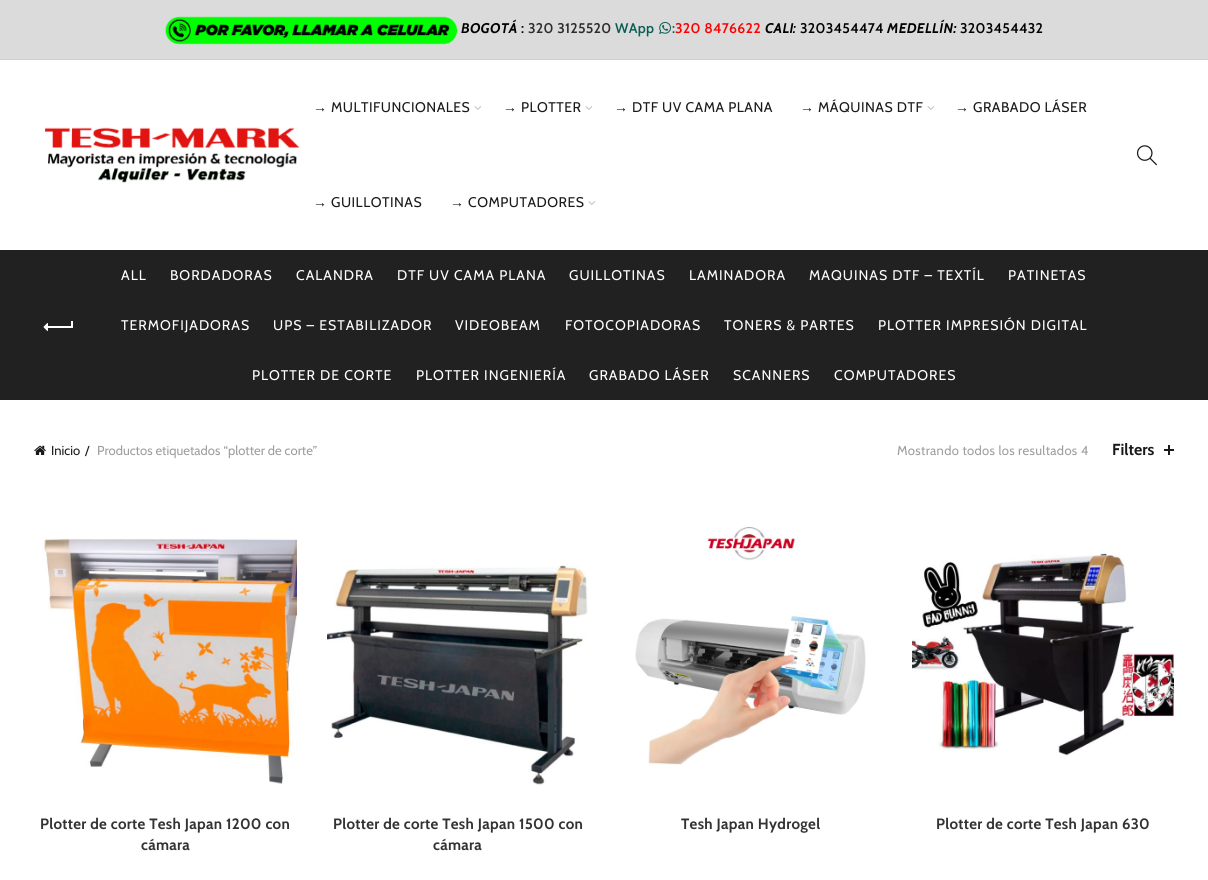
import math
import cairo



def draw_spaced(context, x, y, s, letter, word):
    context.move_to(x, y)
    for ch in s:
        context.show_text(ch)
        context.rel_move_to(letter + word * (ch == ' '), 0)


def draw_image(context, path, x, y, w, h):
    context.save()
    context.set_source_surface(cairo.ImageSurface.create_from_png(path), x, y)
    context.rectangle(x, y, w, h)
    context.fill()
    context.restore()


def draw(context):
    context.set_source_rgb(1, 1, 1)
    context.paint()
    context.set_source_rgb(219 / 255, 219 / 255, 219 / 255)
    context.rectangle(0, 0, 1208, 59)
    context.fill()
    context.set_source_rgb(208 / 255, 208 / 255, 208 / 255)
    context.rectangle(0, 59, 1208, 1)
    context.fill()
    draw_image(context, "images/1.png", 165, 16, 293, 29)
    draw_image(context, "images/2.png", 659, 22, 12, 12)
    draw_image(context, "images/3.png", 45, 127, 255, 56)
    draw_image(context, "images/4.png", 474, 106, 8, 4)
    draw_image(context, "images/4.png", 585, 106, 8, 4)
    draw_image(context, "images/4.png", 927, 106, 8, 4)
    draw_image(context, "images/4.png", 588, 201, 8, 4)
    draw_image(context, "images/5.png", 1137, 145, 20, 21)
    context.set_source_rgb(33 / 255, 33 / 255, 33 / 255)
    context.rectangle(0, 250, 1208, 150)
    context.fill()
    context.set_source_rgb(1, 1, 1)
    context.rectangle(47, 326, 25, 2)
    context.fill()
    draw_image(context, "images/6.png", 43, 323, 5, 8)
    context.rectangle(71, 321, 2, 7)
    context.fill()
    draw_image(context, "images/7.png", 34, 445, 12, 10)
    context.set_source_rgb(27 / 255, 25 / 255, 25 / 255)
    context.rectangle(1168, 445, 2, 10)
    context.fill()
    context.rectangle(1164, 449, 10, 2)
    context.fill()
    draw_image(context, "images/8.png", 41, 538, 256, 246)
    draw_image(context, "images/9.png", 327, 565, 261, 220)
    draw_image(context, "images/10.png", 635, 526, 231, 239)
    draw_image(context, "images/11.png", 912, 553, 262, 203)
    context.select_font_face("Cabin", cairo.FontSlant.ITALIC, cairo.FontWeight.BOLD)
    context.set_font_size(14)
    context.set_source_rgb(0, 0, 0)
    draw_spaced(context, 461, 33, "BOGOTÁ", 0.3, 0)
    context.select_font_face("Cabin SemiBold")
    draw_spaced(context, 521, 33, ":", 0.3, 0)
    context.set_source_rgb(44 / 255, 44 / 255, 44 / 255)
    draw_spaced(context, 528, 33, "320 3125520", 0.3, 0)
    context.set_source_rgb(7 / 255, 94 / 255, 84 / 255)
    draw_spaced(context, 615, 33, "WApp", 0.3, 0)
    draw_spaced(context, 672, 33, ":", 0.3, 0)
    context.set_source_rgb(1, 0, 0)
    draw_spaced(context, 675, 33, "320 8476622", 0.3, 0)
    context.select_font_face("Cabin", cairo.FontSlant.ITALIC, cairo.FontWeight.BOLD)
    context.set_source_rgb(0, 0, 0)
    draw_spaced(context, 765, 33, "CALI", 0.3, 0)
    context.select_font_face("Cabin SemiBold", cairo.FontSlant.ITALIC)
    draw_spaced(context, 793, 33, ":", 0.3, 0)
    context.select_font_face("Cabin SemiBold")
    draw_spaced(context, 800, 33, "3203454474", 0.3, 0)
    context.select_font_face("Cabin", cairo.FontSlant.ITALIC, cairo.FontWeight.BOLD)
    draw_spaced(context, 887, 33, "MEDELLÍN:", 0.3, 0)
    context.select_font_face("Cabin SemiBold")
    draw_spaced(context, 960, 33, "3203454432", 0.3, 0)
    context.select_font_face("Liberation Sans")
    context.set_source_rgb(26 / 255, 26 / 255, 26 / 255)
    draw_spaced(context, 313, 112, "→", 0.5, 0)
    context.select_font_face("Cabin")
    draw_spaced(context, 331, 112, "MULTIFUNCIONALES", 0.5, 0)
    context.select_font_face("Liberation Sans")
    draw_spaced(context, 503, 112, "→", 0.5, 0)
    context.select_font_face("Cabin")
    draw_spaced(context, 521, 112, "PLOTTER", 0.5, 0)
    context.select_font_face("Liberation Sans")
    draw_spaced(context, 614, 112, "→", 0.5, 0)
    context.select_font_face("Cabin")
    draw_spaced(context, 632, 112, "DTF UV CAMA PLANA", 0.5, 0)
    context.select_font_face("Liberation Sans")
    draw_spaced(context, 800, 112, "→", 0.5, 0)
    context.select_font_face("Cabin")
    draw_spaced(context, 818, 112, "MÁQUINAS DTF", 0.5, 0)
    context.select_font_face("Liberation Sans")
    draw_spaced(context, 955, 112, "→", 0.5, 0)
    context.select_font_face("Cabin")
    draw_spaced(context, 973, 112, "GRABADO LÁSER", 0.5, 0)
    context.select_font_face("Liberation Sans")
    draw_spaced(context, 313, 207, "→", 0.5, 0)
    context.select_font_face("Cabin")
    draw_spaced(context, 331, 207, "GUILLOTINAS", 0.5, 0)
    context.select_font_face("Liberation Sans")
    draw_spaced(context, 450, 207, "→", 0.5, 0)
    context.select_font_face("Cabin")
    draw_spaced(context, 468, 207, "COMPUTADORES", 0.5, 0)
    context.set_source_rgb(1, 1, 1)
    draw_spaced(context, 121, 280, "ALL", 1, 0)
    draw_spaced(context, 170, 280, "BORDADORAS", 1, 0)
    draw_spaced(context, 296, 280, "CALANDRA", 1, 0)
    draw_spaced(context, 397, 280, "DTF UV CAMA PLANA", 1, 0)
    draw_spaced(context, 569, 280, "GUILLOTINAS", 1, 0)
    draw_spaced(context, 689, 280, "LAMINADORA", 1, 0)
    draw_spaced(context, 809, 280, "MAQUINAS DTF – TEXTÍL", 1, 0)
    draw_spaced(context, 1008, 280, "PATINETAS", 1, 0)
    draw_spaced(context, 121, 330, "TERMOFIJADORAS", 1, 0)
    draw_spaced(context, 273, 330, "UPS – ESTABILIZADOR", 1, 0)
    draw_spaced(context, 455, 330, "VIDEOBEAM", 1, 0)
    draw_spaced(context, 565, 330, "FOTOCOPIADORAS", 1, 0)
    draw_spaced(context, 724, 330, "TONERS & PARTES", 1, 0)
    draw_spaced(context, 878, 330, "PLOTTER IMPRESIÓN DIGITAL", 1, 0)
    draw_spaced(context, 252, 380, "PLOTTER DE CORTE", 1, 0)
    draw_spaced(context, 416, 380, "PLOTTER INGENIERÍA", 1, 0)
    draw_spaced(context, 589, 380, "GRABADO LÁSER", 1, 0)
    draw_spaced(context, 733, 380, "SCANNERS", 1, 0)
    draw_spaced(context, 834, 380, "COMPUTADORES", 1, 0)
    context.set_font_size(13)
    context.set_source_rgb(26 / 255, 26 / 255, 26 / 255)
    context.move_to(51, 455)
    context.show_text("Inicio")
    context.move_to(85, 455)
    context.show_text("/")
    context.set_source_rgb(158 / 255, 158 / 255, 158 / 255)
    context.move_to(97, 455)
    context.show_text("Productos etiquetados “plotter de corte”")
    draw_spaced(context, 897, 455, "Mostrando todos los resultados 4", 0.3, 0)
    context.select_font_face("Cabin", cairo.FontSlant.NORMAL, cairo.FontWeight.BOLD)
    context.set_font_size(16)
    context.set_source_rgb(26 / 255, 26 / 255, 26 / 255)
    context.move_to(1112, 455)
    context.show_text("Filters")
    context.set_font_size(15)
    context.set_source_rgb(51 / 255, 51 / 255, 51 / 255)
    draw_spaced(context, 40, 829, "Plotter de corte Tesh Japan 1200 con", 0.3, 0)
    draw_spaced(context, 141, 850, "cámara", 0.3, 0)
    draw_spaced(context, 333, 829, "Plotter de corte Tesh Japan 1500 con", 0.3, 0)
    draw_spaced(context, 433, 850, "cámara", 0.3, 0)
    draw_spaced(context, 681, 829, "Tesh Japan Hydrogel", 0.3, 0)
    draw_spaced(context, 936, 829, "Plotter de corte Tesh Japan 630", 0.3, 0)


surface = cairo.ImageSurface(cairo.Format.RGB24, 1208, 880)
context = cairo.Context(surface)
options = cairo.FontOptions()
options.set_hint_metrics(cairo.HintMetrics.OFF)
options.set_hint_style(cairo.HintStyle.NONE)
context.set_font_options(options)
context.set_miter_limit(4)
draw(context)
surface.write_to_png("out.png")
